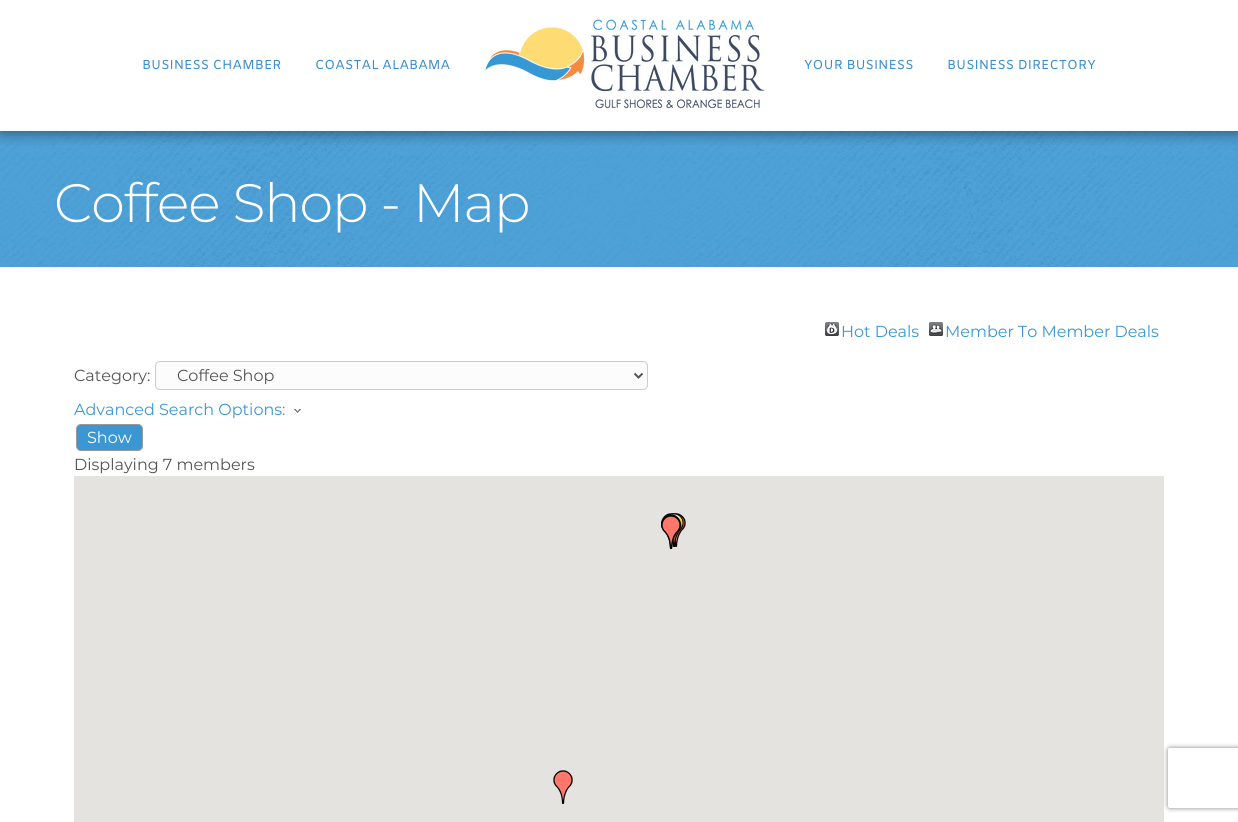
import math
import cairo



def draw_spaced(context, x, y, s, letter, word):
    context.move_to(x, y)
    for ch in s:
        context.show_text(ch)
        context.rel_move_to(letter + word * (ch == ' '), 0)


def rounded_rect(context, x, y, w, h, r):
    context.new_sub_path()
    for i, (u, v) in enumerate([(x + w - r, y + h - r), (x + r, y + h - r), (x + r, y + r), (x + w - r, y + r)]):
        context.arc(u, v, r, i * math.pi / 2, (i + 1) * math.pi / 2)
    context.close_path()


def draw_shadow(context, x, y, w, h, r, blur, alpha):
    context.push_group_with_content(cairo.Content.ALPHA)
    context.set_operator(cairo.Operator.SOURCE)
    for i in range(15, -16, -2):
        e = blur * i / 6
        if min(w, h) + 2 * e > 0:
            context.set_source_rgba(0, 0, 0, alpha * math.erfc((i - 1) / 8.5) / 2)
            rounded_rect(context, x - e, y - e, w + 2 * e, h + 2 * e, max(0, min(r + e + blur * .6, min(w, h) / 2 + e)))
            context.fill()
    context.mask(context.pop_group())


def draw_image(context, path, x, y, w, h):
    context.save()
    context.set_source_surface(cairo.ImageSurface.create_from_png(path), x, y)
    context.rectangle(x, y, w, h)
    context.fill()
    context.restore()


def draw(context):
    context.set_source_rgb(1, 1, 1)
    context.paint()
    draw_image(context, "images/2.png", 0, 131, 1238, 136)
    context.save()
    context.rectangle(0, 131, 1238, 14)
    context.clip()
    context.set_source_rgb(0, 0, 0)
    draw_shadow(context, 1, 1, 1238, 131, 0, 7.5, 0.5)
    context.restore()
    draw_image(context, "images/1.png", 485, 19, 280, 90)
    draw_image(context, "images/3.png", 825, 322, 14, 14)
    draw_image(context, "images/4.png", 929, 322, 14, 14)
    context.set_source_rgb(252 / 255, 252 / 255, 252 / 255)
    rounded_rect(context, 155.5, 361.5, 492, 28, 4.5)
    context.fill_preserve()
    context.set_source_rgb(204 / 255, 204 / 255, 204 / 255)
    context.set_line_width(1)
    context.stroke()
    context.new_path()
    context.move_to(634.5, 373.5)
    context.line_to(638.5, 377.5)
    context.line_to(642.5, 373.5)
    context.set_source_rgb(85 / 255, 85 / 255, 85 / 255)
    context.set_line_width(2)
    context.stroke()
    draw_image(context, "images/5.png", 294, 409, 7, 4)
    context.set_source_rgb(59 / 255, 151 / 255, 211 / 255)
    rounded_rect(context, 76.5, 424.5, 66, 26, 4.5)
    context.fill_preserve()
    context.set_source_rgb(153 / 255, 153 / 255, 153 / 255)
    context.set_line_width(1)
    context.stroke()
    context.set_source_rgb(229 / 255, 227 / 255, 223 / 255)
    context.rectangle(74, 476, 1090, 346)
    context.fill()
    draw_image(context, "images/6.png", 661, 513, 14, 34)
    draw_image(context, "images/8.png", 670, 513, 16, 34)
    draw_image(context, "images/7.png", 667, 513, 17, 34)
    draw_image(context, "images/9.png", 661, 514, 20, 34)
    draw_image(context, "images/10.png", 661, 515, 20, 34)
    draw_image(context, "images/11.png", 661, 515, 20, 34)
    draw_image(context, "images/12.png", 553, 770, 20, 34)
    context.save()
    context.set_fill_rule(cairo.FillRule.EVEN_ODD)
    context.new_path()
    context.move_to(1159, 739)
    context.line_to(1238, 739)
    context.line_to(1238, 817)
    context.line_to(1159, 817)
    context.close_path()
    context.move_to(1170, 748)
    context.line_to(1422, 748)
    context.curve_to(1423, 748, 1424, 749, 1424, 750)
    context.line_to(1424, 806)
    context.curve_to(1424, 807, 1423, 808, 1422, 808)
    context.line_to(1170, 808)
    context.curve_to(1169, 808, 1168, 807, 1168, 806)
    context.line_to(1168, 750)
    context.curve_to(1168, 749, 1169, 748, 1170, 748)
    context.close_path()
    context.clip()
    context.set_source_rgb(128 / 255, 128 / 255, 128 / 255)
    draw_shadow(context, 1168, 748, 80, 60, 2, 2.5, 1)
    context.restore()
    context.select_font_face("Amiko")
    context.set_font_size(13)
    context.set_source_rgb(56 / 255, 142 / 255, 209 / 255)
    context.move_to(142, 69)
    context.show_text("BUSINESS CHAMBER")
    context.move_to(315, 69)
    context.show_text("COASTAL ALABAMA")
    context.move_to(804, 69)
    context.show_text("YOUR BUSINESS")
    context.move_to(947, 69)
    context.show_text("BUSINESS DIRECTORY")
    context.select_font_face("Montserrat Light")
    context.set_font_size(54)
    context.set_source_rgb(1, 1, 1)
    draw_spaced(context, 54, 222, "Coffee Shop - Map", -1, 0)
    context.select_font_face("Montserrat")
    context.set_font_size(16)
    context.set_source_rgb(59 / 255, 151 / 255, 211 / 255)
    context.move_to(841, 337)
    context.show_text("Hot Deals")
    context.move_to(945, 337)
    context.show_text("Member To Member Deals")
    context.set_source_rgb(85 / 255, 85 / 255, 85 / 255)
    context.move_to(74, 381)
    context.show_text("Category:")
    context.move_to(177, 381)
    context.show_text("Coffee Shop")
    context.set_source_rgb(59 / 255, 151 / 255, 211 / 255)
    context.move_to(74, 415)
    context.show_text("Advanced Search Options:")
    context.set_source_rgb(1, 1, 1)
    context.move_to(87, 443)
    context.show_text("Show")
    context.set_source_rgb(85 / 255, 85 / 255, 85 / 255)
    context.move_to(74, 470)
    context.show_text("Displaying 7 members")


surface = cairo.ImageSurface(cairo.Format.RGB24, 1238, 822)
context = cairo.Context(surface)
options = cairo.FontOptions()
options.set_hint_metrics(cairo.HintMetrics.OFF)
options.set_hint_style(cairo.HintStyle.NONE)
context.set_font_options(options)
context.set_miter_limit(4)
draw(context)
surface.write_to_png("out.png")
